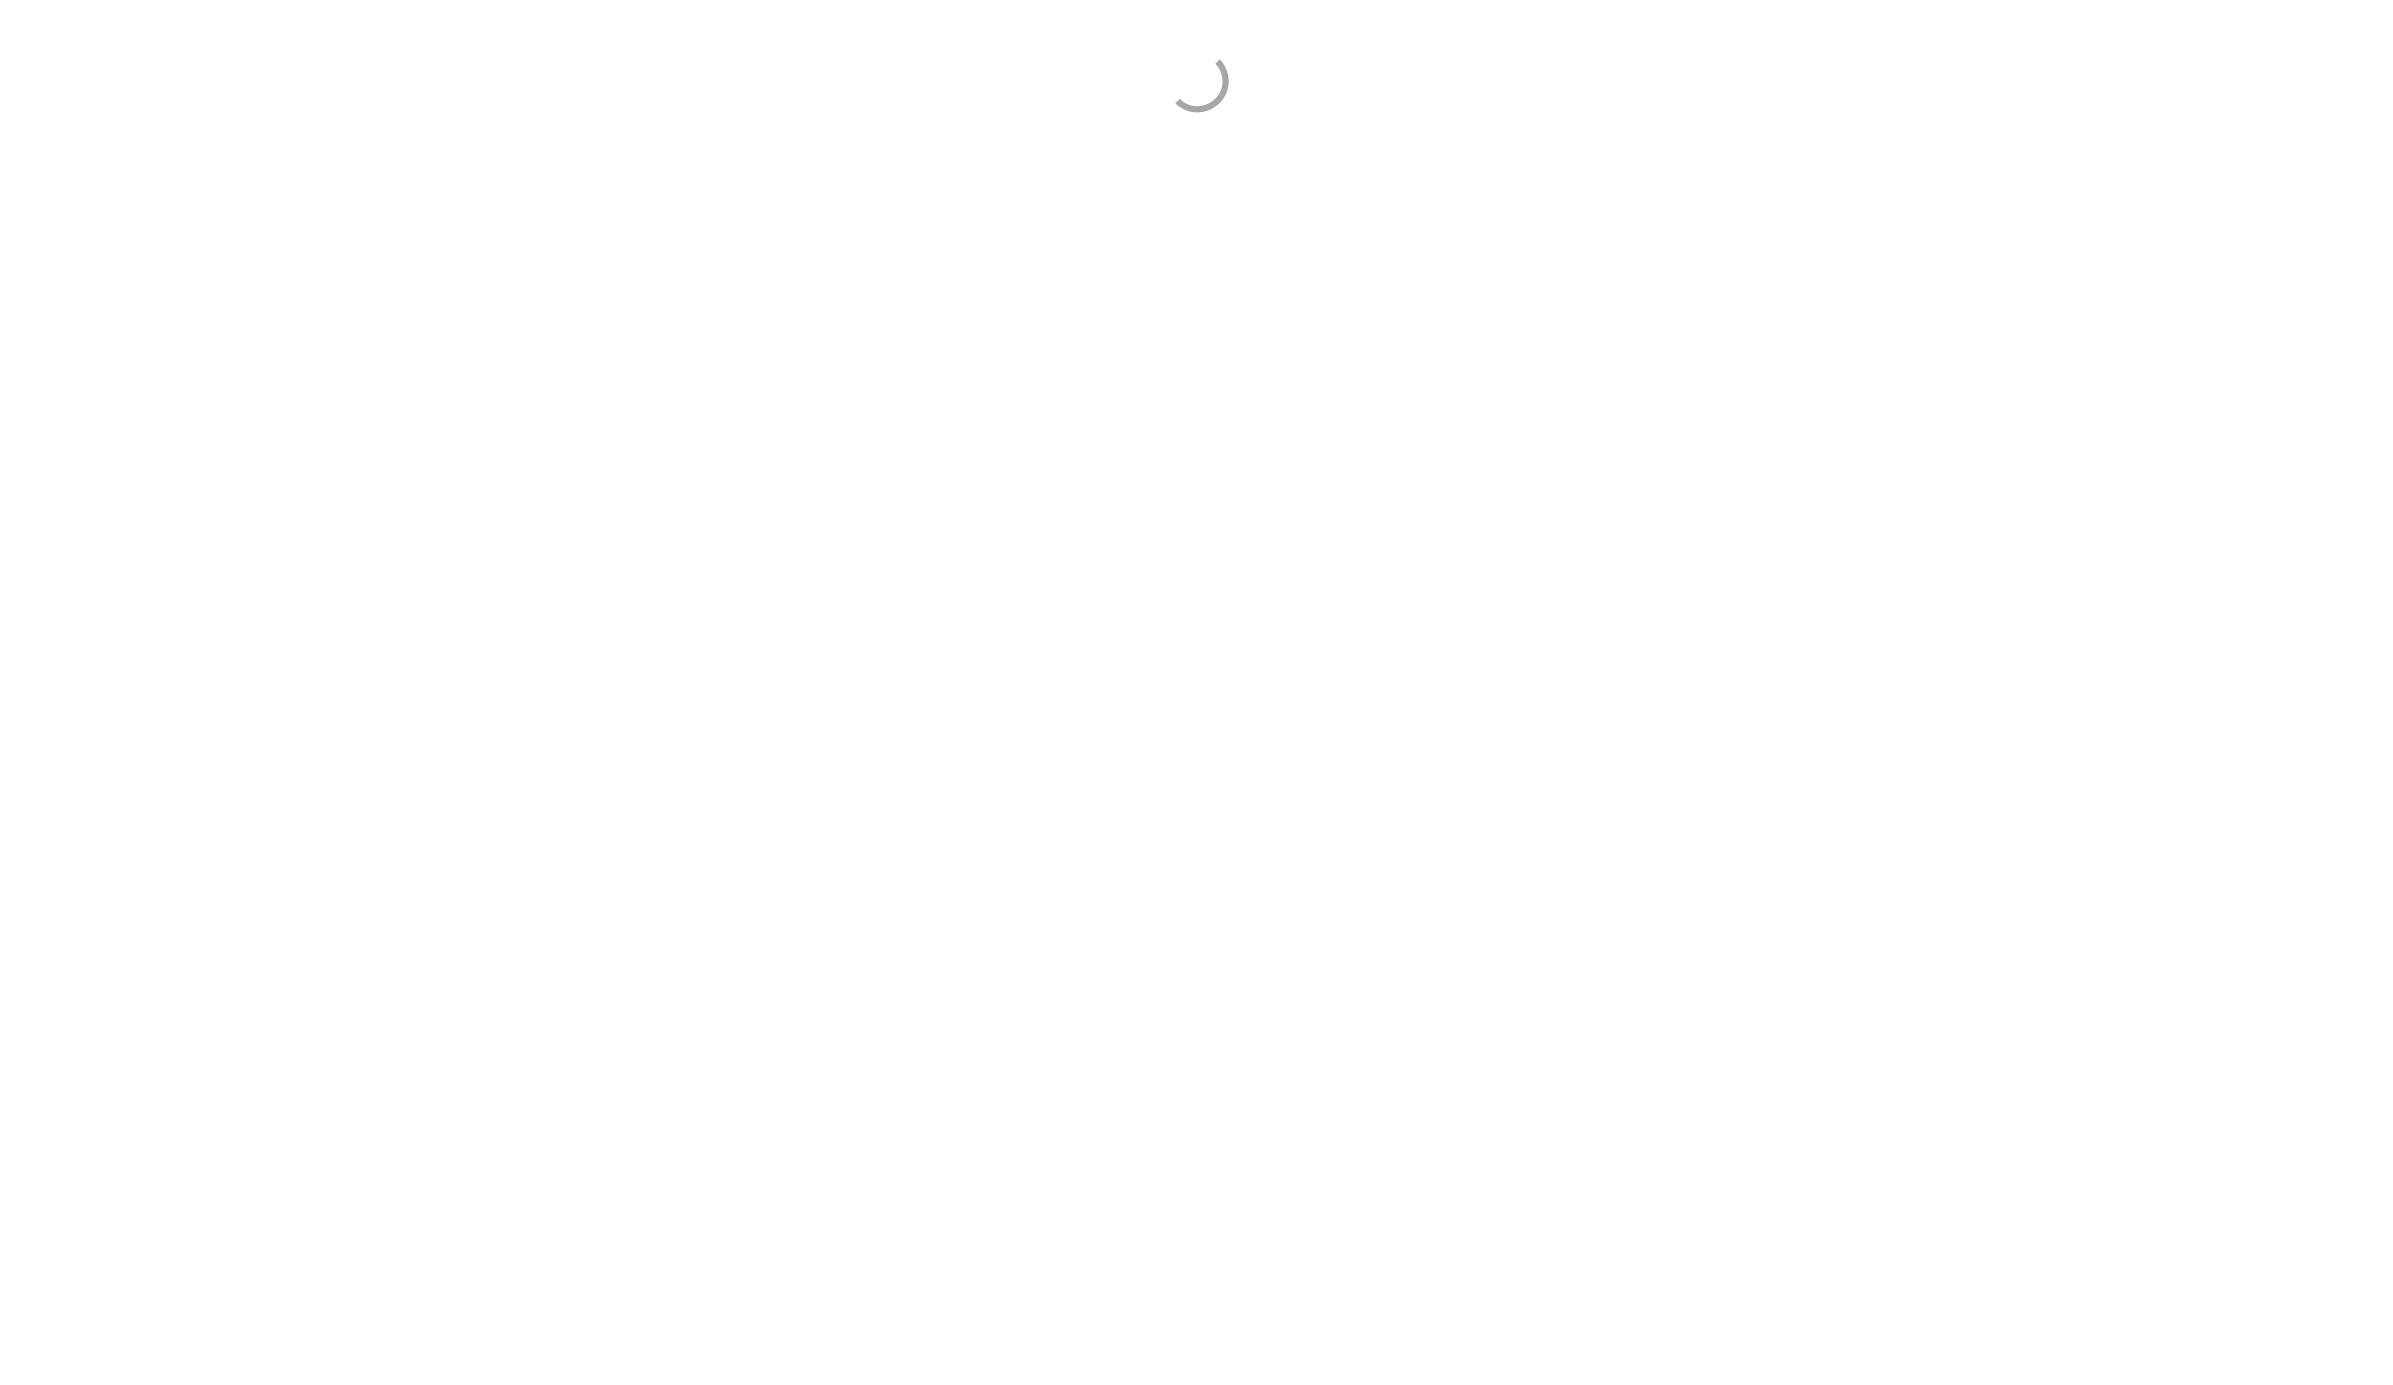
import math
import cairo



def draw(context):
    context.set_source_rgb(1, 1, 1)
    context.paint()
    context.new_path()
    context.move_to(1217.5, 61.5)
    context.curve_to(1221.5, 65.5, 1224, 70.5, 1225, 75.5)
    context.curve_to(1230.5, 103, 1197, 120.5, 1177.5, 101)
    context.set_source_rgb(166 / 255, 166 / 255, 166 / 255)
    context.set_line_width(6.2)
    context.stroke()


surface = cairo.ImageSurface(cairo.Format.RGB24, 2393, 1385)
context = cairo.Context(surface)
options = cairo.FontOptions()
options.set_hint_metrics(cairo.HintMetrics.OFF)
options.set_hint_style(cairo.HintStyle.NONE)
context.set_font_options(options)
context.set_miter_limit(4)
draw(context)
surface.write_to_png("out.png")
